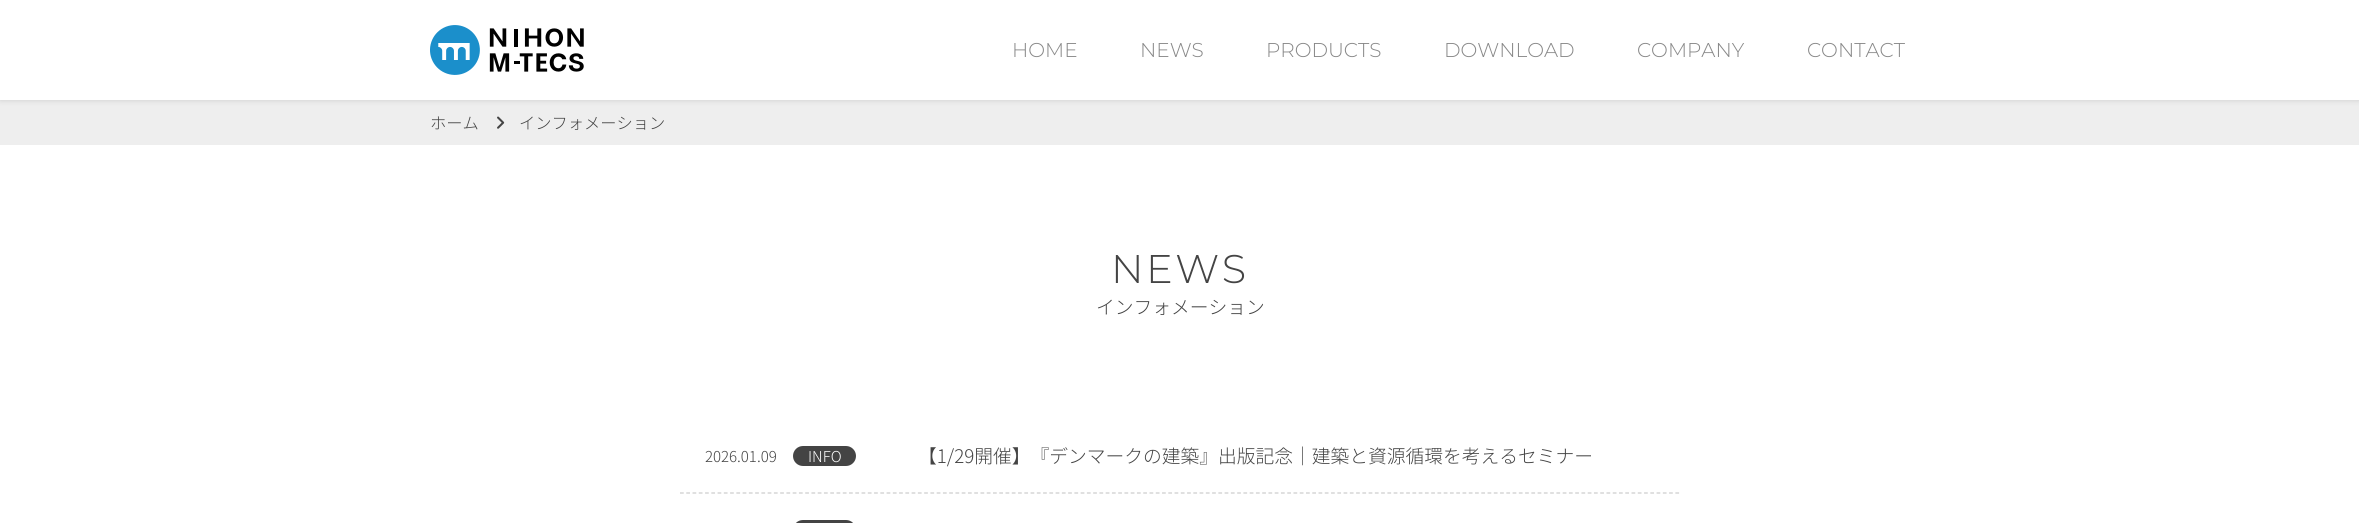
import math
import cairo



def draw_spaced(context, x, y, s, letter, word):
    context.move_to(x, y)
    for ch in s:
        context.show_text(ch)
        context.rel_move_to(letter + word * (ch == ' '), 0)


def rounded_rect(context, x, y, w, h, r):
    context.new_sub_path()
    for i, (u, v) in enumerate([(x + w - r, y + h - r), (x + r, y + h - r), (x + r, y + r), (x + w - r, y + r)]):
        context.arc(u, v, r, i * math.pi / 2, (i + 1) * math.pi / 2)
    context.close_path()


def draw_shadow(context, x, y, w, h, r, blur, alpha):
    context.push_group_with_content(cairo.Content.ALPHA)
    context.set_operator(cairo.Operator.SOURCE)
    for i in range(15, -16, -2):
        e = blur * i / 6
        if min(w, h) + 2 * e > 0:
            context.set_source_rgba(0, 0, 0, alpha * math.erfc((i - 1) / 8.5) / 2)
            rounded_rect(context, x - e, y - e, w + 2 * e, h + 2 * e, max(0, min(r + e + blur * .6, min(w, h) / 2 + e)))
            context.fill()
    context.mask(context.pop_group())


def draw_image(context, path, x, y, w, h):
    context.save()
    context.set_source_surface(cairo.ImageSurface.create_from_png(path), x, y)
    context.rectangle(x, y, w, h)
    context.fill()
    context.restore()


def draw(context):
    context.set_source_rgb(1, 1, 1)
    context.paint()
    context.set_source_rgb(238 / 255, 238 / 255, 238 / 255)
    context.rectangle(0, 100, 2359, 45)
    context.fill()
    context.save()
    context.rectangle(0, 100, 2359, 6)
    context.clip()
    context.set_source_rgb(204 / 255, 204 / 255, 204 / 255)
    draw_shadow(context, 0, 0, 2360, 100, 0, 3, 1)
    context.restore()
    draw_image(context, "images/1.png", 430, 25, 154, 50)
    draw_image(context, "images/2.png", 497, 116, 8, 13)
    context.new_path()
    context.move_to(680, 493)
    context.line_to(1680, 493)
    context.set_source_rgb(204 / 255, 204 / 255, 204 / 255)
    context.set_line_width(1.2)
    context.set_dash([3.75, 2.51])
    context.stroke()
    context.set_source_rgb(68 / 255, 68 / 255, 68 / 255)
    rounded_rect(context, 793, 446, 63, 20, 10)
    context.fill()
    rounded_rect(context, 793, 520, 63, 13, 10)
    context.fill()
    context.select_font_face("Montserrat Thin")
    context.set_font_size(20)
    context.set_source_rgb(136 / 255, 136 / 255, 136 / 255)
    context.move_to(1012, 57)
    context.show_text("HOME")
    context.move_to(1140, 57)
    context.show_text("NEWS")
    context.move_to(1266, 57)
    context.show_text("PRODUCTS")
    context.move_to(1444, 57)
    context.show_text("DOWNLOAD")
    context.move_to(1637, 57)
    context.show_text("COMPANY")
    context.move_to(1807, 57)
    context.show_text("CONTACT")
    context.select_font_face("Noto Sans JP Light")
    context.set_font_size(16.25)
    context.set_source_rgb(68 / 255, 68 / 255, 68 / 255)
    context.move_to(430, 129)
    context.show_text("ホーム")
    context.move_to(519, 129)
    context.show_text("インフォメーション")
    context.select_font_face("Montserrat Thin")
    context.set_font_size(40)
    draw_spaced(context, 1111, 283, "NEWS", 2.5, 0)
    context.select_font_face("Noto Sans JP Light")
    context.set_font_size(18.75)
    context.move_to(1096, 314)
    context.show_text("インフォメーション")
    context.set_font_size(15)
    context.move_to(705, 462)
    context.show_text("2026.01.09")
    context.set_source_rgb(1, 1, 1)
    context.move_to(808, 462)
    context.show_text("INFO")
    context.set_font_size(18.75)
    context.set_source_rgb(68 / 255, 68 / 255, 68 / 255)
    context.move_to(918, 463)
    context.show_text("【1/29開催】『デンマークの建築』出版記念｜建築と資源循環を考えるセミナー")


surface = cairo.ImageSurface(cairo.Format.RGB24, 2359, 523)
context = cairo.Context(surface)
options = cairo.FontOptions()
options.set_hint_metrics(cairo.HintMetrics.OFF)
options.set_hint_style(cairo.HintStyle.NONE)
context.set_font_options(options)
context.set_miter_limit(4)
draw(context)
surface.write_to_png("out.png")
